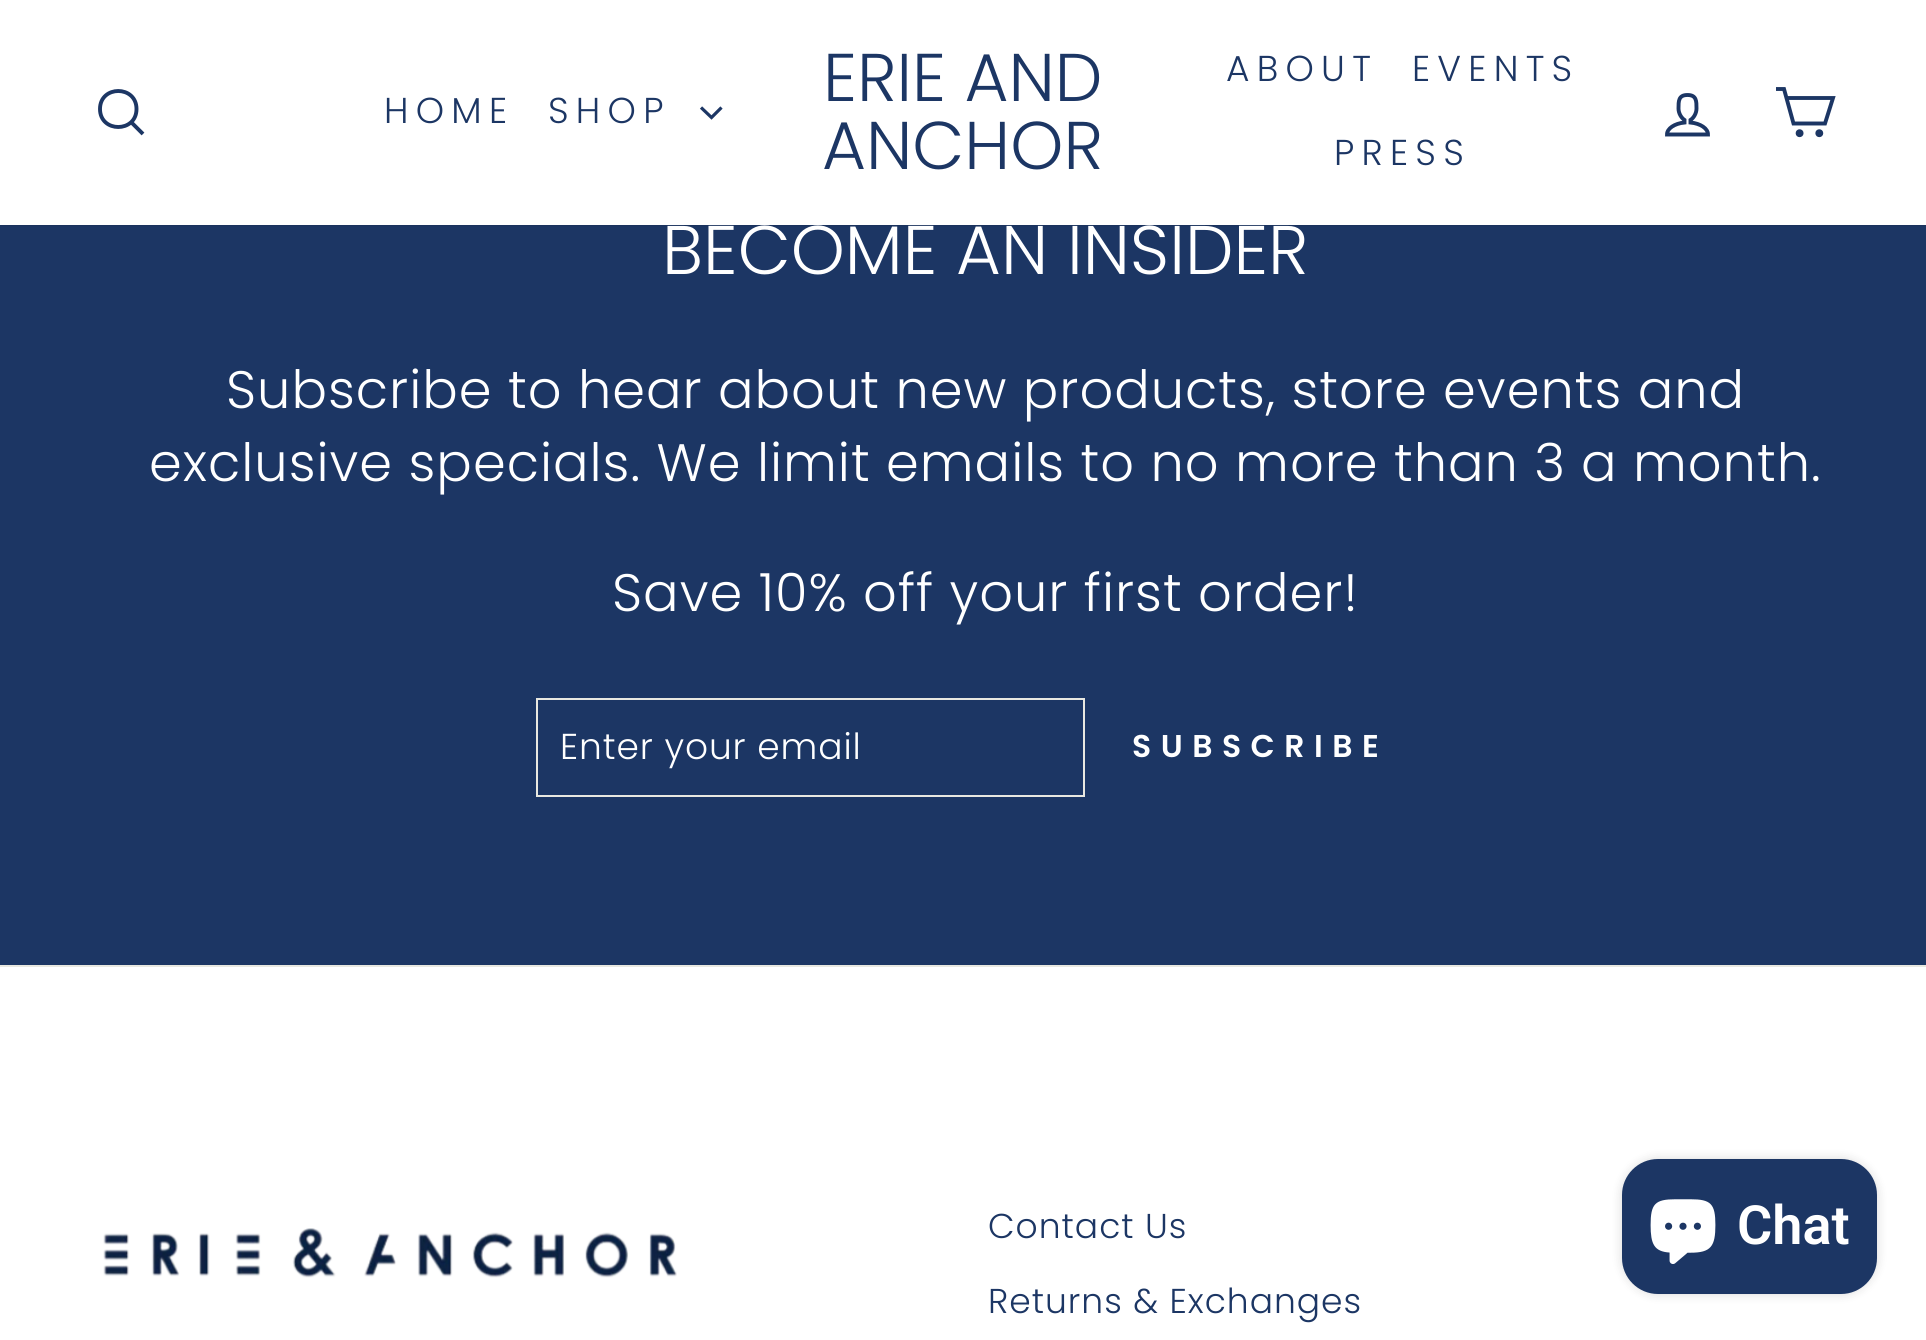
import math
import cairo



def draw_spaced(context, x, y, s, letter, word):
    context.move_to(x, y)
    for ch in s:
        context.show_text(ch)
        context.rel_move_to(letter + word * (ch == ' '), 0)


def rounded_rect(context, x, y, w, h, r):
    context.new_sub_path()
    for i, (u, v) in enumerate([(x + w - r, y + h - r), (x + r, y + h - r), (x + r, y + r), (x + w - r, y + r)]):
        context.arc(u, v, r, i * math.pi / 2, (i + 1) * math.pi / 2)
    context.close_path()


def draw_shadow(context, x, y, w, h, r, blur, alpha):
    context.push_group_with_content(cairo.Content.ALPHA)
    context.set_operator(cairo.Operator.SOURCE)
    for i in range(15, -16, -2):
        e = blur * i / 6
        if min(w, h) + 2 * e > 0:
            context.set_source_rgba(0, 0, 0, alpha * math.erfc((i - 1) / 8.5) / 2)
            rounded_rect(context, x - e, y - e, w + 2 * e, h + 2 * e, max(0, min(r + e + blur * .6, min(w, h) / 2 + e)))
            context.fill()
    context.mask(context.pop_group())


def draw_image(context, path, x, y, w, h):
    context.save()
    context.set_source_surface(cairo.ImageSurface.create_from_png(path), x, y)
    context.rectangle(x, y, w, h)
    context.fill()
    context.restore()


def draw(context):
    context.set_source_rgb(1, 1, 1)
    context.paint()
    context.set_source_rgb(28 / 255, 54 / 255, 100 / 255)
    context.rectangle(0, 225, 1926, 740)
    context.fill()
    context.set_source_rgb(0, 0, 0)
    draw_shadow(context, 0, 0, 1926, 225, 0, 1, 0.2)
    context.set_source_rgb(1, 1, 1)
    context.rectangle(0, 0, 1926, 225)
    context.fill()
    context.new_path()
    context.move_to(136.5, 109)
    context.curve_to(136.5, 133, 100, 133, 100, 109)
    context.curve_to(100, 85, 136.5, 85, 136.5, 109)
    context.close_path()
    context.move_to(143, 134)
    context.line_to(131.5, 122.5)
    context.set_source_rgb(28 / 255, 54 / 255, 100 / 255)
    context.set_line_width(3.9)
    context.stroke()
    context.new_path()
    context.move_to(701, 107.5)
    context.line_to(711.5, 117.5)
    context.line_to(721.5, 107.5)
    context.set_line_width(3.2)
    context.stroke()
    context.new_path()
    context.move_to(1690.5, 122.5)
    context.line_to(1690.5, 120)
    context.curve_to(1693.5, 118, 1696.5, 113.5, 1696.5, 108.5)
    context.curve_to(1696.5, 101, 1696.5, 95, 1687.5, 95)
    context.curve_to(1678.5, 95, 1678.5, 101, 1678.5, 108.5)
    context.curve_to(1678.5, 113.5, 1681.5, 118, 1684.5, 120)
    context.line_to(1684.5, 122.5)
    context.curve_to(1674.5, 123.5, 1667, 128.5, 1667, 134.5)
    context.line_to(1708, 134.5)
    context.curve_to(1708, 128.5, 1700.5, 123.5, 1690.5, 122.5)
    context.close_path()
    context.set_line_width(3.9)
    context.stroke()
    context.new_path()
    context.move_to(1787, 98)
    context.line_to(1833, 98)
    context.line_to(1825, 123.5)
    context.line_to(1793.5, 123.5)
    context.line_to(1784, 89)
    context.line_to(1776, 89)
    context.stroke()
    context.arc(1799.6, 133.2, 2, 0, 2 * math.pi)
    context.stroke()
    context.arc(1819.3, 133.2, 2, 0, 2 * math.pi)
    context.stroke()
    context.rectangle(537, 699, 547, 97)
    context.set_source_rgb(232 / 255, 232 / 255, 225 / 255)
    context.set_line_width(2)
    context.stroke()
    context.rectangle(0, 965, 1926, 2)
    context.fill()
    draw_image(context, "images/1.png", 103, 1228, 574, 50)
    context.set_source_rgb(0, 0, 0)
    draw_shadow(context, 1622, 1159, 255, 135, 36, 5.5, 0.15)
    context.set_source_rgb(28 / 255, 54 / 255, 100 / 255)
    rounded_rect(context, 1622, 1159, 255, 135, 36)
    context.fill()
    draw_image(context, "images/2.png", 1650, 1199, 66, 65)
    context.select_font_face("Poppins Light")
    context.set_font_size(36)
    draw_spaced(context, 384, 123, "HOME", 7.25, 0)
    draw_spaced(context, 548, 123, "SHOP", 7.25, 0)
    context.set_font_size(67.5)
    context.move_to(823, 101)
    context.show_text("ERIE AND")
    context.move_to(822, 169)
    context.show_text("ANCHOR")
    context.set_font_size(36)
    draw_spaced(context, 1226, 81, "ABOUT", 7.25, 0)
    draw_spaced(context, 1412, 81, "EVENTS", 7.25, 0)
    draw_spaced(context, 1334, 165, "PRESS", 7.25, 0)
    context.set_font_size(68.75)
    context.set_source_rgb(1, 1, 1)
    context.move_to(662, 274)
    context.show_text("BECOME AN INSIDER")
    context.set_font_size(52.65)
    draw_spaced(context, 226, 408, "Subscribe to hear about new products, store events and", 1, 0)
    draw_spaced(context, 149, 481, "exclusive specials. We limit emails to no more than 3", 1, 0)
    draw_spaced(context, 1581, 481, "a month.", 1, 0)
    draw_spaced(context, 612, 611, "Save 10% off your first order!", 1, 0)
    context.set_font_size(36)
    draw_spaced(context, 560, 759, "Enter your email", 0.9, 0)
    context.select_font_face("Poppins SemiBold")
    context.set_font_size(31.5)
    draw_spaced(context, 1132, 757, "SUBSCRIBE", 9.5, 0)
    context.select_font_face("Poppins Light")
    context.set_font_size(34.5)
    context.set_source_rgb(28 / 255, 54 / 255, 100 / 255)
    draw_spaced(context, 988, 1238, "Contact Us", 1, 0)
    draw_spaced(context, 988, 1313, "Returns & Exchanges", 1, 0)
    context.select_font_face("Roboto SemiBold")
    context.set_font_size(54)
    context.set_source_rgb(1, 1, 1)
    context.move_to(1737, 1244)
    context.show_text("Chat")


surface = cairo.ImageSurface(cairo.Format.RGB24, 1926, 1340)
context = cairo.Context(surface)
options = cairo.FontOptions()
options.set_hint_metrics(cairo.HintMetrics.OFF)
options.set_hint_style(cairo.HintStyle.NONE)
context.set_font_options(options)
context.set_miter_limit(4)
draw(context)
surface.write_to_png("out.png")
